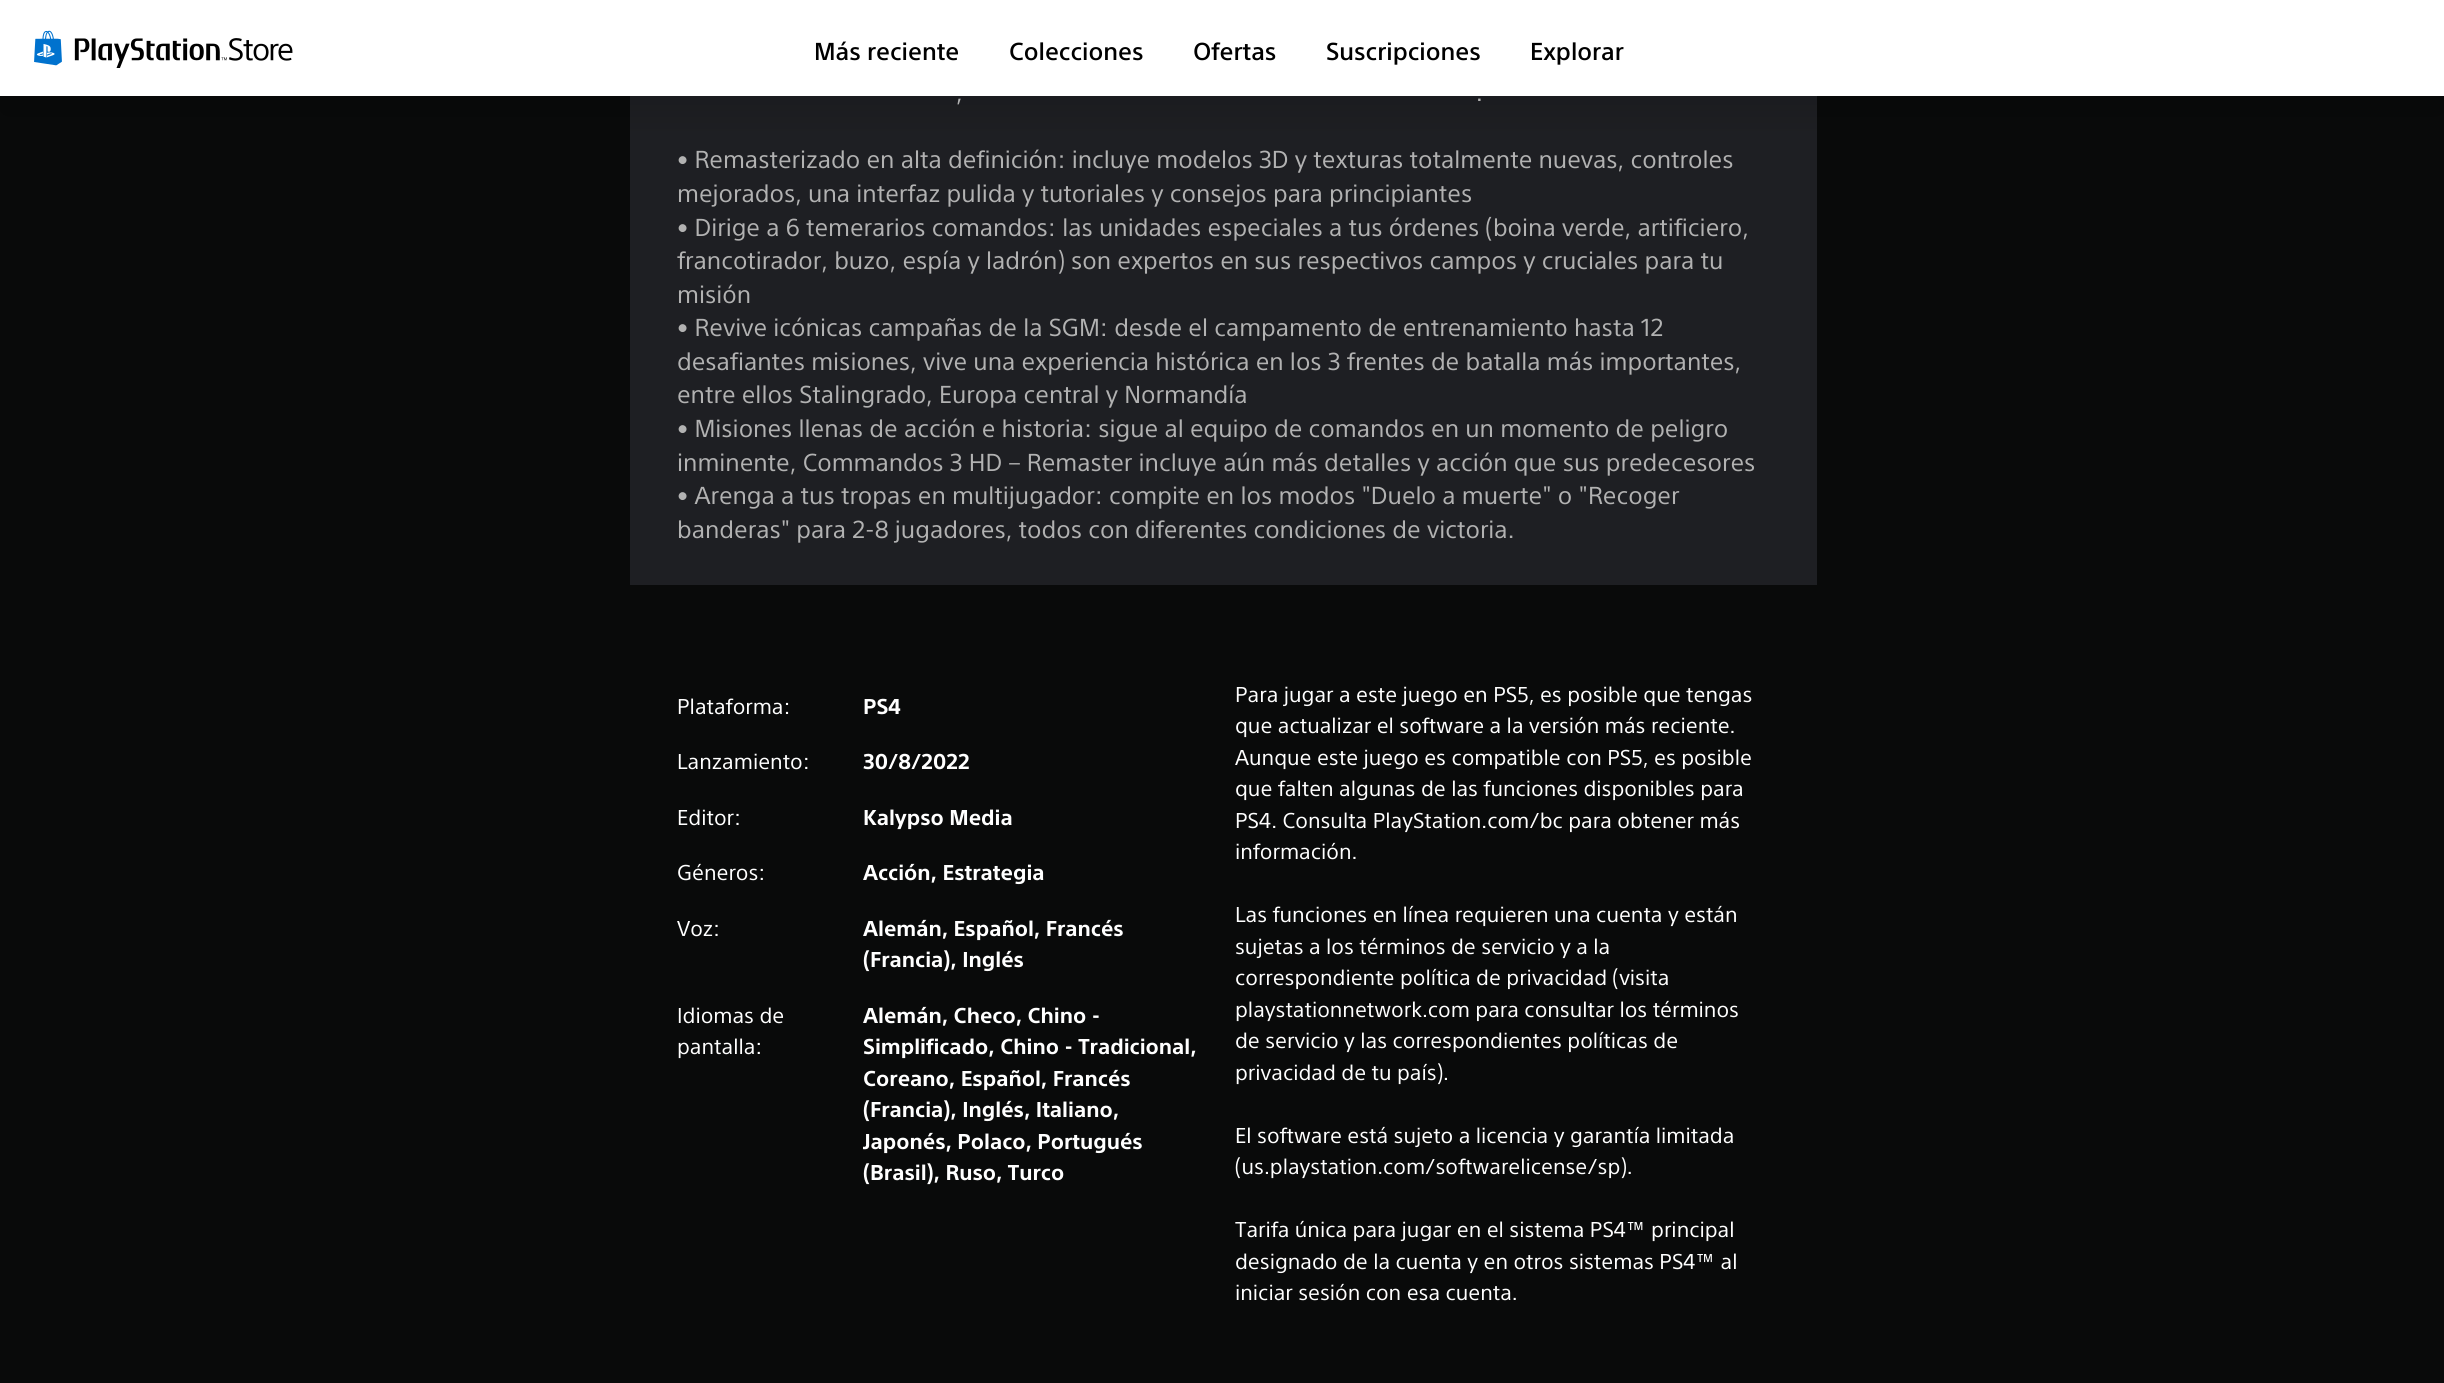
import math
import cairo



def rounded_rect(context, x, y, w, h, r):
    context.new_sub_path()
    for i, (u, v) in enumerate([(x + w - r, y + h - r), (x + r, y + h - r), (x + r, y + r), (x + w - r, y + r)]):
        context.arc(u, v, r, i * math.pi / 2, (i + 1) * math.pi / 2)
    context.close_path()


def draw_shadow(context, x, y, w, h, r, blur, alpha):
    context.push_group_with_content(cairo.Content.ALPHA)
    context.set_operator(cairo.Operator.SOURCE)
    for i in range(15, -16, -2):
        e = blur * i / 6
        if min(w, h) + 2 * e > 0:
            context.set_source_rgba(0, 0, 0, alpha * math.erfc((i - 1) / 8.5) / 2)
            rounded_rect(context, x - e, y - e, w + 2 * e, h + 2 * e, max(0, min(r + e + blur * .6, min(w, h) / 2 + e)))
            context.fill()
    context.mask(context.pop_group())


def draw_image(context, path, x, y, w, h):
    context.save()
    context.set_source_surface(cairo.ImageSurface.create_from_png(path), x, y)
    context.rectangle(x, y, w, h)
    context.fill()
    context.restore()


def draw(context):
    context.set_source_rgb(9 / 255, 10 / 255, 10 / 255)
    context.paint()
    context.set_source_rgb(1, 1, 1)
    context.rectangle(0, 0, 2444, 96)
    context.fill()
    context.set_source_rgb(30 / 255, 31 / 255, 35 / 255)
    context.rectangle(630, 96, 1187, 489)
    context.fill()
    context.save()
    context.rectangle(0, 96, 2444, 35)
    context.clip()
    context.set_source_rgb(0, 0, 0)
    draw_shadow(context, 0, 18, 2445, 96, 0, 18, 0.12)
    context.restore()
    draw_image(context, "images/1.png", 34, 30, 28, 36)
    draw_image(context, "images/2.png", 74, 38, 219, 30)
    context.select_font_face("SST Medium")
    context.set_font_size(24)
    context.set_source_rgb(0, 0, 0)
    context.move_to(814, 60)
    context.show_text("Más reciente")
    context.move_to(1009, 60)
    context.show_text("Colecciones")
    context.move_to(1193, 60)
    context.show_text("Ofertas")
    context.move_to(1326, 60)
    context.show_text("Suscripciones")
    context.move_to(1530, 60)
    context.show_text("Explorar")
    context.select_font_face("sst")
    context.set_source_rgb(178 / 255, 178 / 255, 178 / 255)
    context.move_to(956, 101)
    context.show_text(",")
    context.move_to(1476, 101)
    context.show_text(".")
    context.move_to(677, 168)
    context.show_text("• Remasterizado en alta definición: incluye modelos 3D y texturas totalmente nuevas, controles")
    context.move_to(677, 202)
    context.show_text("mejorados, una interfaz pulida y tutoriales y consejos para principiantes")
    context.move_to(677, 236)
    context.show_text("• Dirige a 6 temerarios comandos: las unidades especiales a tus órdenes (boina verde, artificiero,")
    context.move_to(677, 269)
    context.show_text("francotirador, buzo, espía y ladrón) son expertos en sus respectivos campos y cruciales para tu")
    context.move_to(677, 303)
    context.show_text("misión")
    context.move_to(677, 336)
    context.show_text("• Revive icónicas campañas de la SGM: desde el campamento de entrenamiento hasta 12")
    context.move_to(677, 370)
    context.show_text("desafiantes misiones, vive una experiencia histórica en los 3 frentes de batalla más importantes,")
    context.move_to(677, 403)
    context.show_text("entre ellos Stalingrado, Europa central y Normandía")
    context.move_to(677, 437)
    context.show_text("• Misiones llenas de acción e historia: sigue al equipo de comandos en un momento de peligro")
    context.move_to(677, 471)
    context.show_text("inminente, Commandos 3 HD – Remaster incluye aún más detalles y acción que sus predecesores")
    context.move_to(677, 504)
    context.show_text("• Arenga a tus tropas en multijugador: compite en los modos \"Duelo a muerte\" o \"Recoger")
    context.move_to(677, 538)
    context.show_text("banderas\" para 2-8 jugadores, todos con diferentes condiciones de victoria.")
    context.set_font_size(21)
    context.set_source_rgb(1, 1, 1)
    context.move_to(677, 714)
    context.show_text("Plataforma:")
    context.select_font_face("sst", cairo.FontSlant.NORMAL, cairo.FontWeight.BOLD)
    context.move_to(863, 714)
    context.show_text("PS4")
    context.select_font_face("sst")
    context.move_to(677, 769)
    context.show_text("Lanzamiento:")
    context.select_font_face("sst", cairo.FontSlant.NORMAL, cairo.FontWeight.BOLD)
    context.move_to(863, 769)
    context.show_text("30/8/2022")
    context.select_font_face("sst")
    context.move_to(677, 825)
    context.show_text("Editor:")
    context.select_font_face("sst", cairo.FontSlant.NORMAL, cairo.FontWeight.BOLD)
    context.move_to(863, 825)
    context.show_text("Kalypso Media")
    context.select_font_face("sst")
    context.move_to(677, 880)
    context.show_text("Géneros:")
    context.select_font_face("sst", cairo.FontSlant.NORMAL, cairo.FontWeight.BOLD)
    context.move_to(863, 880)
    context.show_text("Acción, Estrategia")
    context.select_font_face("sst")
    context.move_to(677, 936)
    context.show_text("Voz:")
    context.select_font_face("sst", cairo.FontSlant.NORMAL, cairo.FontWeight.BOLD)
    context.move_to(863, 936)
    context.show_text("Alemán, Español, Francés")
    context.move_to(863, 967)
    context.show_text("(Francia), Inglés")
    context.select_font_face("sst")
    context.move_to(677, 1023)
    context.show_text("Idiomas de")
    context.move_to(677, 1054)
    context.show_text("pantalla:")
    context.select_font_face("sst", cairo.FontSlant.NORMAL, cairo.FontWeight.BOLD)
    context.move_to(863, 1023)
    context.show_text("Alemán, Checo, Chino -")
    context.move_to(863, 1054)
    context.show_text("Simplificado, Chino - Tradicional,")
    context.move_to(863, 1086)
    context.show_text("Coreano, Español, Francés")
    context.move_to(863, 1117)
    context.show_text("(Francia), Inglés, Italiano,")
    context.move_to(863, 1149)
    context.show_text("Japonés, Polaco, Portugués")
    context.move_to(863, 1180)
    context.show_text("(Brasil), Ruso, Turco")
    context.select_font_face("sst")
    context.move_to(1235, 702)
    context.show_text("Para jugar a este juego en PS5, es posible que tengas")
    context.move_to(1235, 733)
    context.show_text("que actualizar el software a la versión más reciente.")
    context.move_to(1235, 765)
    context.show_text("Aunque este juego es compatible con PS5, es posible")
    context.move_to(1235, 796)
    context.show_text("que falten algunas de las funciones disponibles para")
    context.move_to(1235, 828)
    context.show_text("PS4. Consulta PlayStation.com/bc para obtener más")
    context.move_to(1235, 859)
    context.show_text("información.")
    context.move_to(1235, 922)
    context.show_text("Las funciones en línea requieren una cuenta y están")
    context.move_to(1235, 954)
    context.show_text("sujetas a los términos de servicio y a la")
    context.move_to(1235, 985)
    context.show_text("correspondiente política de privacidad (visita")
    context.move_to(1235, 1017)
    context.show_text("playstationnetwork.com para consultar los términos")
    context.move_to(1235, 1048)
    context.show_text("de servicio y las correspondientes políticas de")
    context.move_to(1235, 1080)
    context.show_text("privacidad de tu país).")
    context.move_to(1235, 1143)
    context.show_text("El software está sujeto a licencia y garantía limitada")
    context.move_to(1235, 1174)
    context.show_text("(us.playstation.com/softwarelicense/sp).")
    context.move_to(1235, 1237)
    context.show_text("Tarifa única para jugar en el sistema PS4™ principal")
    context.move_to(1235, 1269)
    context.show_text("designado de la cuenta y en otros sistemas PS4™ al")
    context.move_to(1235, 1300)
    context.show_text("iniciar sesión con esa cuenta.")


surface = cairo.ImageSurface(cairo.Format.RGB24, 2444, 1383)
context = cairo.Context(surface)
options = cairo.FontOptions()
options.set_hint_metrics(cairo.HintMetrics.OFF)
options.set_hint_style(cairo.HintStyle.NONE)
context.set_font_options(options)
context.set_miter_limit(4)
draw(context)
surface.write_to_png("out.png")
